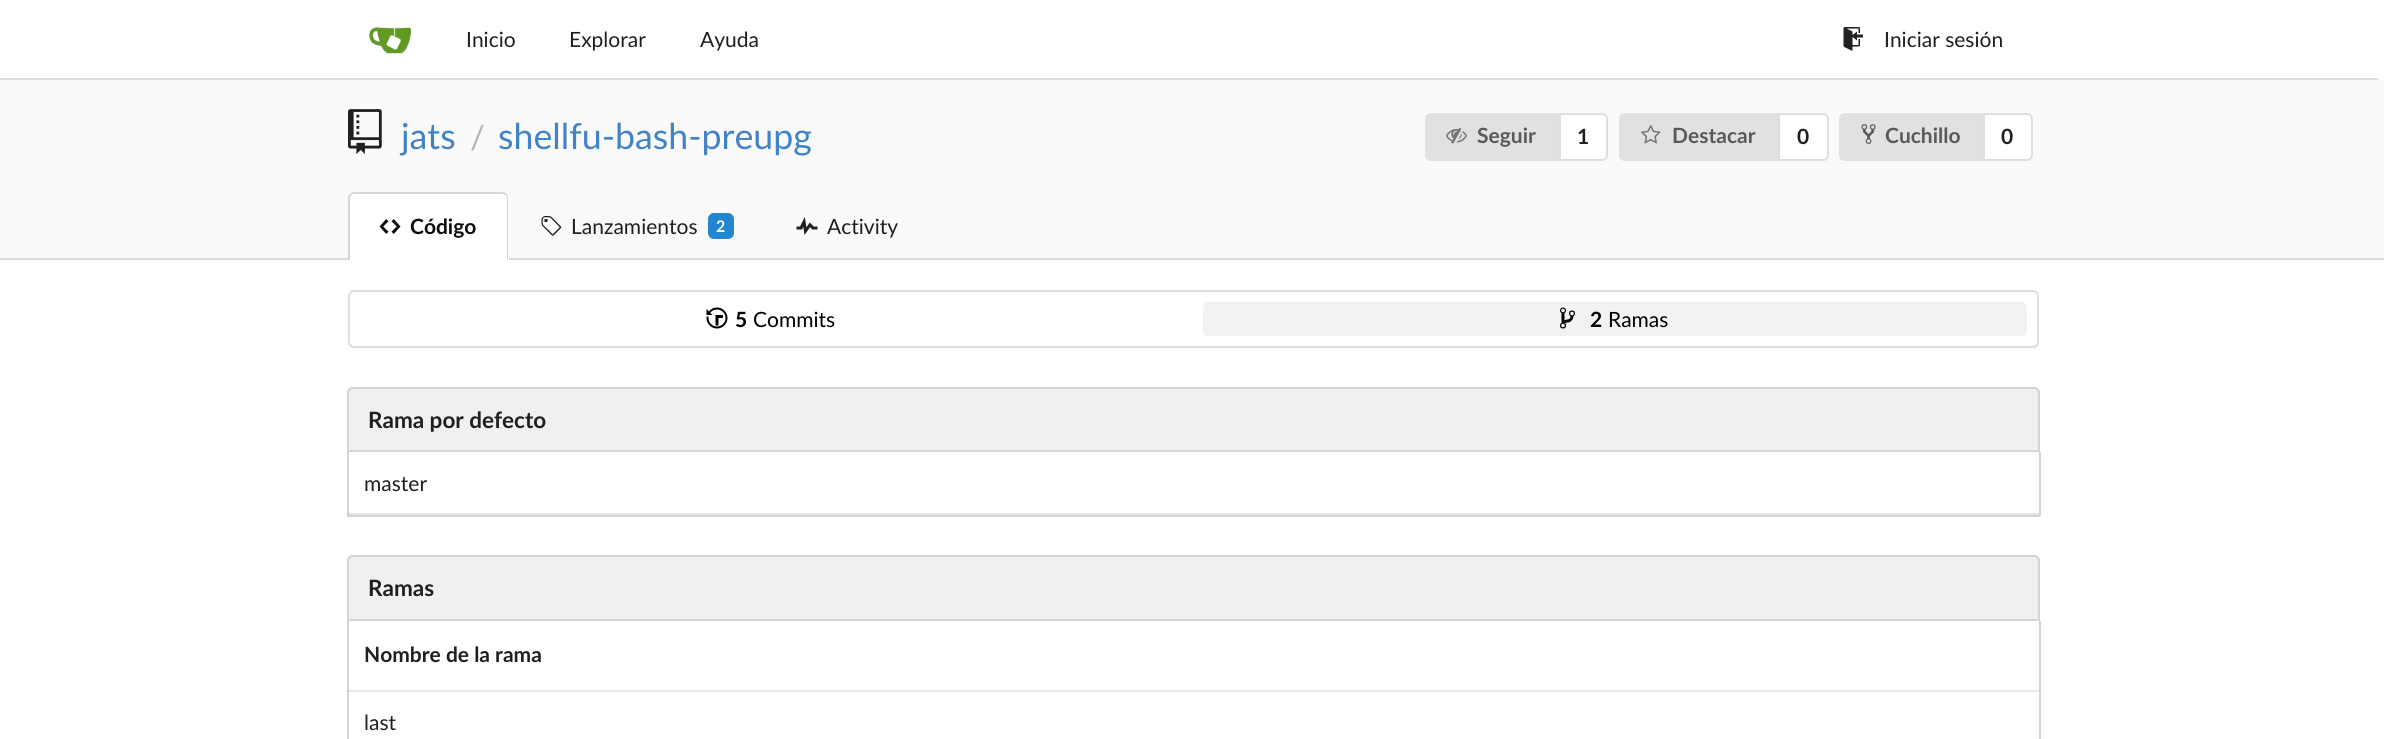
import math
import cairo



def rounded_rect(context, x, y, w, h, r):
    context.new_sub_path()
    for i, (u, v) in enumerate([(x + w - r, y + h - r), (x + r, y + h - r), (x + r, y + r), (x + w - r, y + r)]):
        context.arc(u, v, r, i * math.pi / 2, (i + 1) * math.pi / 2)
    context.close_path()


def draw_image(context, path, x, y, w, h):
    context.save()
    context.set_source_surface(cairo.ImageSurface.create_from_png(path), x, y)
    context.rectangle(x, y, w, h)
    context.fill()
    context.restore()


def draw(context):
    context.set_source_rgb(1, 1, 1)
    context.paint()
    context.set_source_rgb(233 / 255, 233 / 255, 233 / 255)
    context.rectangle(348, 690, 1691, 2)
    context.fill()
    context.set_source_rgb(230 / 255, 230 / 255, 230 / 255)
    context.rectangle(348, 513, 1691, 2)
    context.fill()
    context.set_source_rgb(221 / 255, 221 / 255, 221 / 255)
    context.rectangle(0, 78, 2378, 2)
    context.fill()
    draw_image(context, "images/1.png", 369, 27, 42, 27)
    draw_image(context, "images/2.png", 1843, 27, 20, 24)
    context.set_source_rgb(250 / 255, 250 / 255, 250 / 255)
    context.rectangle(0, 80, 2384, 178)
    context.fill()
    draw_image(context, "images/3.png", 348, 109, 34, 45)
    context.set_source_rgb(224 / 255, 225 / 255, 226 / 255)
    context.new_path()
    context.move_to(1431, 113)
    context.line_to(1560, 113)
    context.line_to(1560, 161)
    context.line_to(1431, 161)
    context.curve_to(1427.5, 161, 1425, 158.5, 1425, 155)
    context.line_to(1425, 119)
    context.curve_to(1425, 115.5, 1427.5, 113, 1431, 113)
    context.close_path()
    context.fill()
    draw_image(context, "images/4.png", 1446, 128, 21, 16)
    context.set_source_rgb(1, 1, 1)
    context.new_path()
    context.move_to(1560, 114)
    context.line_to(1602, 114)
    context.curve_to(1605, 114, 1607, 116, 1607, 119)
    context.line_to(1607, 155)
    context.curve_to(1607, 158, 1605, 160, 1602, 160)
    context.line_to(1560, 160)
    context.close_path()
    context.fill_preserve()
    context.set_source_rgb(222 / 255, 222 / 255, 222 / 255)
    context.stroke()
    context.set_source_rgb(224 / 255, 225 / 255, 226 / 255)
    context.new_path()
    context.move_to(1625, 113)
    context.line_to(1779, 113)
    context.line_to(1779, 161)
    context.line_to(1625, 161)
    context.curve_to(1621.5, 161, 1619, 158.5, 1619, 155)
    context.line_to(1619, 119)
    context.curve_to(1619, 115.5, 1621.5, 113, 1625, 113)
    context.close_path()
    context.fill()
    draw_image(context, "images/5.png", 1641, 125, 20, 19)
    context.set_source_rgb(1, 1, 1)
    context.new_path()
    context.move_to(1779, 114)
    context.line_to(1823, 114)
    context.curve_to(1826, 114, 1828, 116, 1828, 119)
    context.line_to(1828, 155)
    context.curve_to(1828, 158, 1826, 160, 1823, 160)
    context.line_to(1779, 160)
    context.close_path()
    context.fill_preserve()
    context.set_source_rgb(222 / 255, 222 / 255, 222 / 255)
    context.stroke()
    context.set_source_rgb(224 / 255, 225 / 255, 226 / 255)
    context.new_path()
    context.move_to(1845, 113)
    context.line_to(1985, 113)
    context.line_to(1985, 161)
    context.line_to(1845, 161)
    context.curve_to(1841.5, 161, 1839, 158.5, 1839, 155)
    context.line_to(1839, 119)
    context.curve_to(1839, 115.5, 1841.5, 113, 1845, 113)
    context.close_path()
    context.fill()
    draw_image(context, "images/6.png", 1861, 124, 15, 20)
    context.set_source_rgb(1, 1, 1)
    context.new_path()
    context.move_to(1984, 114)
    context.line_to(2027, 114)
    context.curve_to(2030, 114, 2032, 116, 2032, 119)
    context.line_to(2032, 155)
    context.curve_to(2032, 158, 2030, 160, 2027, 160)
    context.line_to(1984, 160)
    context.close_path()
    context.fill_preserve()
    context.set_source_rgb(222 / 255, 222 / 255, 222 / 255)
    context.stroke()
    context.set_source_rgb(218 / 255, 218 / 255, 218 / 255)
    context.rectangle(0, 258, 2384, 2)
    context.fill()
    context.set_source_rgb(1, 1, 1)
    context.new_path()
    context.move_to(354, 192)
    context.line_to(503, 192)
    context.curve_to(506.5, 192, 509, 194.5, 509, 198)
    context.line_to(509, 260)
    context.line_to(348, 260)
    context.line_to(348, 198)
    context.curve_to(348, 194.5, 350.5, 192, 354, 192)
    context.close_path()
    context.fill()
    context.set_source_rgb(212 / 255, 212 / 255, 213 / 255)
    context.set_fill_rule(cairo.FillRule.EVEN_ODD)
    context.new_path()
    context.move_to(354, 192)
    context.line_to(502, 192)
    context.curve_to(506, 192, 508, 195, 508, 198)
    context.line_to(508, 260)
    context.line_to(348, 260)
    context.line_to(348, 198)
    context.curve_to(348, 195, 351, 192, 354, 192)
    context.close_path()
    context.move_to(354, 194)
    context.line_to(502, 194)
    context.curve_to(505, 194, 507, 196, 507, 198)
    context.line_to(507, 260)
    context.line_to(350, 260)
    context.line_to(350, 198)
    context.curve_to(350, 196, 352, 194, 354, 194)
    context.close_path()
    context.fill()
    draw_image(context, "images/7.png", 379, 219, 22, 15)
    draw_image(context, "images/8.png", 541, 216, 21, 20)
    context.set_source_rgb(33 / 255, 133 / 255, 208 / 255)
    rounded_rect(context, 708, 213, 26, 26, 6)
    context.fill()
    draw_image(context, "images/9.png", 796, 217, 22, 18)
    rounded_rect(context, 349, 291, 1689, 56, 5)
    context.set_source_rgb(222 / 255, 222 / 255, 222 / 255)
    context.stroke()
    draw_image(context, "images/10.png", 706, 307, 22, 22)
    context.set_source_rgb(242 / 255, 242 / 255, 242 / 255)
    rounded_rect(context, 1203, 302, 824, 34, 5)
    context.fill()
    draw_image(context, "images/11.png", 1560, 307, 15, 22)
    context.set_source_rgb(240 / 255, 240 / 255, 240 / 255)
    context.new_path()
    context.move_to(353, 388)
    context.line_to(2034, 388)
    context.curve_to(2037, 388, 2039, 390, 2039, 393)
    context.line_to(2039, 451)
    context.line_to(348, 451)
    context.line_to(348, 393)
    context.curve_to(348, 390, 350, 388, 353, 388)
    context.close_path()
    context.fill_preserve()
    context.set_source_rgb(212 / 255, 212 / 255, 213 / 255)
    context.stroke()
    context.rectangle(2039, 452, 2, 64)
    context.fill()
    context.rectangle(347, 515, 1693, 2)
    context.fill()
    context.rectangle(347, 452, 2, 64)
    context.fill()
    context.set_source_rgb(191 / 255, 191 / 255, 192 / 255)
    context.rectangle(348, 513, 1, 2)
    context.fill()
    context.set_source_rgb(240 / 255, 240 / 255, 240 / 255)
    context.new_path()
    context.move_to(353, 556)
    context.line_to(2034, 556)
    context.curve_to(2037, 556, 2039, 558, 2039, 561)
    context.line_to(2039, 620)
    context.line_to(348, 620)
    context.line_to(348, 561)
    context.curve_to(348, 558, 350, 556, 353, 556)
    context.close_path()
    context.fill_preserve()
    context.set_source_rgb(212 / 255, 212 / 255, 213 / 255)
    context.stroke()
    context.rectangle(2039, 621, 2, 118)
    context.fill()
    context.rectangle(347, 621, 2, 118)
    context.fill()
    context.set_source_rgb(194 / 255, 194 / 255, 196 / 255)
    context.rectangle(348, 690, 1, 2)
    context.fill()
    context.select_font_face("Lato")
    context.set_font_size(21)
    context.set_source_rgb(31 / 255, 31 / 255, 31 / 255)
    context.move_to(466, 47)
    context.show_text("Inicio")
    context.move_to(569, 47)
    context.show_text("Explorar")
    context.move_to(700, 47)
    context.show_text("Ayuda")
    context.move_to(1884, 47)
    context.show_text("Iniciar sesión")
    context.set_font_size(35.75)
    context.set_source_rgb(65 / 255, 131 / 255, 196 / 255)
    context.move_to(401, 149)
    context.show_text("jats")
    context.set_font_size(33)
    context.set_source_rgb(180 / 255, 180 / 255, 180 / 255)
    context.move_to(470, 149)
    context.show_text("/")
    context.set_font_size(35.75)
    context.set_source_rgb(65 / 255, 131 / 255, 196 / 255)
    context.move_to(498, 149)
    context.show_text("shellfu-bash-preupg")
    context.select_font_face("Lato", cairo.FontSlant.NORMAL, cairo.FontWeight.BOLD)
    context.set_font_size(21)
    context.set_source_rgb(90 / 255, 90 / 255, 90 / 255)
    context.move_to(1477, 143)
    context.show_text("Seguir")
    context.set_source_rgb(31 / 255, 31 / 255, 31 / 255)
    context.move_to(1577, 144)
    context.show_text("1")
    context.set_source_rgb(90 / 255, 90 / 255, 90 / 255)
    context.move_to(1672, 143)
    context.show_text("Destacar")
    context.set_source_rgb(31 / 255, 31 / 255, 31 / 255)
    context.move_to(1797, 144)
    context.show_text("0")
    context.set_source_rgb(90 / 255, 90 / 255, 90 / 255)
    context.move_to(1885, 143)
    context.show_text("Cuchillo")
    context.set_source_rgb(31 / 255, 31 / 255, 31 / 255)
    context.move_to(2001, 144)
    context.show_text("0")
    context.set_source_rgb(13 / 255, 13 / 255, 13 / 255)
    context.move_to(410, 234)
    context.show_text("Código")
    context.select_font_face("Lato")
    context.set_source_rgb(31 / 255, 31 / 255, 31 / 255)
    context.move_to(571, 234)
    context.show_text("Lanzamientos")
    context.select_font_face("Lato", cairo.FontSlant.NORMAL, cairo.FontWeight.BOLD)
    context.set_font_size(16)
    context.set_source_rgb(1, 1, 1)
    context.move_to(716, 232)
    context.show_text("2")
    context.select_font_face("Lato")
    context.set_font_size(21)
    context.set_source_rgb(31 / 255, 31 / 255, 31 / 255)
    context.move_to(827, 234)
    context.show_text("Activity")
    context.select_font_face("Lato", cairo.FontSlant.NORMAL, cairo.FontWeight.BOLD)
    context.set_source_rgb(0, 0, 0)
    context.move_to(735, 327)
    context.show_text("5")
    context.select_font_face("Lato")
    context.move_to(753, 327)
    context.show_text("Commits")
    context.select_font_face("Lato", cairo.FontSlant.NORMAL, cairo.FontWeight.BOLD)
    context.move_to(1590, 327)
    context.show_text("2")
    context.select_font_face("Lato")
    context.move_to(1608, 327)
    context.show_text("Ramas")
    context.select_font_face("Lato", cairo.FontSlant.NORMAL, cairo.FontWeight.BOLD)
    context.set_font_size(22.5)
    context.set_source_rgb(31 / 255, 31 / 255, 31 / 255)
    context.move_to(368, 428)
    context.show_text("Rama por defecto")
    context.select_font_face("Lato")
    context.set_font_size(21)
    context.move_to(364, 491)
    context.show_text("master")
    context.select_font_face("Lato", cairo.FontSlant.NORMAL, cairo.FontWeight.BOLD)
    context.set_font_size(22.5)
    context.move_to(368, 596)
    context.show_text("Ramas")
    context.set_font_size(21)
    context.move_to(364, 662)
    context.show_text("Nombre de la rama")
    context.select_font_face("Lato")
    context.move_to(364, 730)
    context.show_text("last")


surface = cairo.ImageSurface(cairo.Format.RGB24, 2384, 739)
context = cairo.Context(surface)
options = cairo.FontOptions()
options.set_hint_metrics(cairo.HintMetrics.OFF)
options.set_hint_style(cairo.HintStyle.NONE)
context.set_font_options(options)
context.set_miter_limit(4)
draw(context)
surface.write_to_png("out.png")
